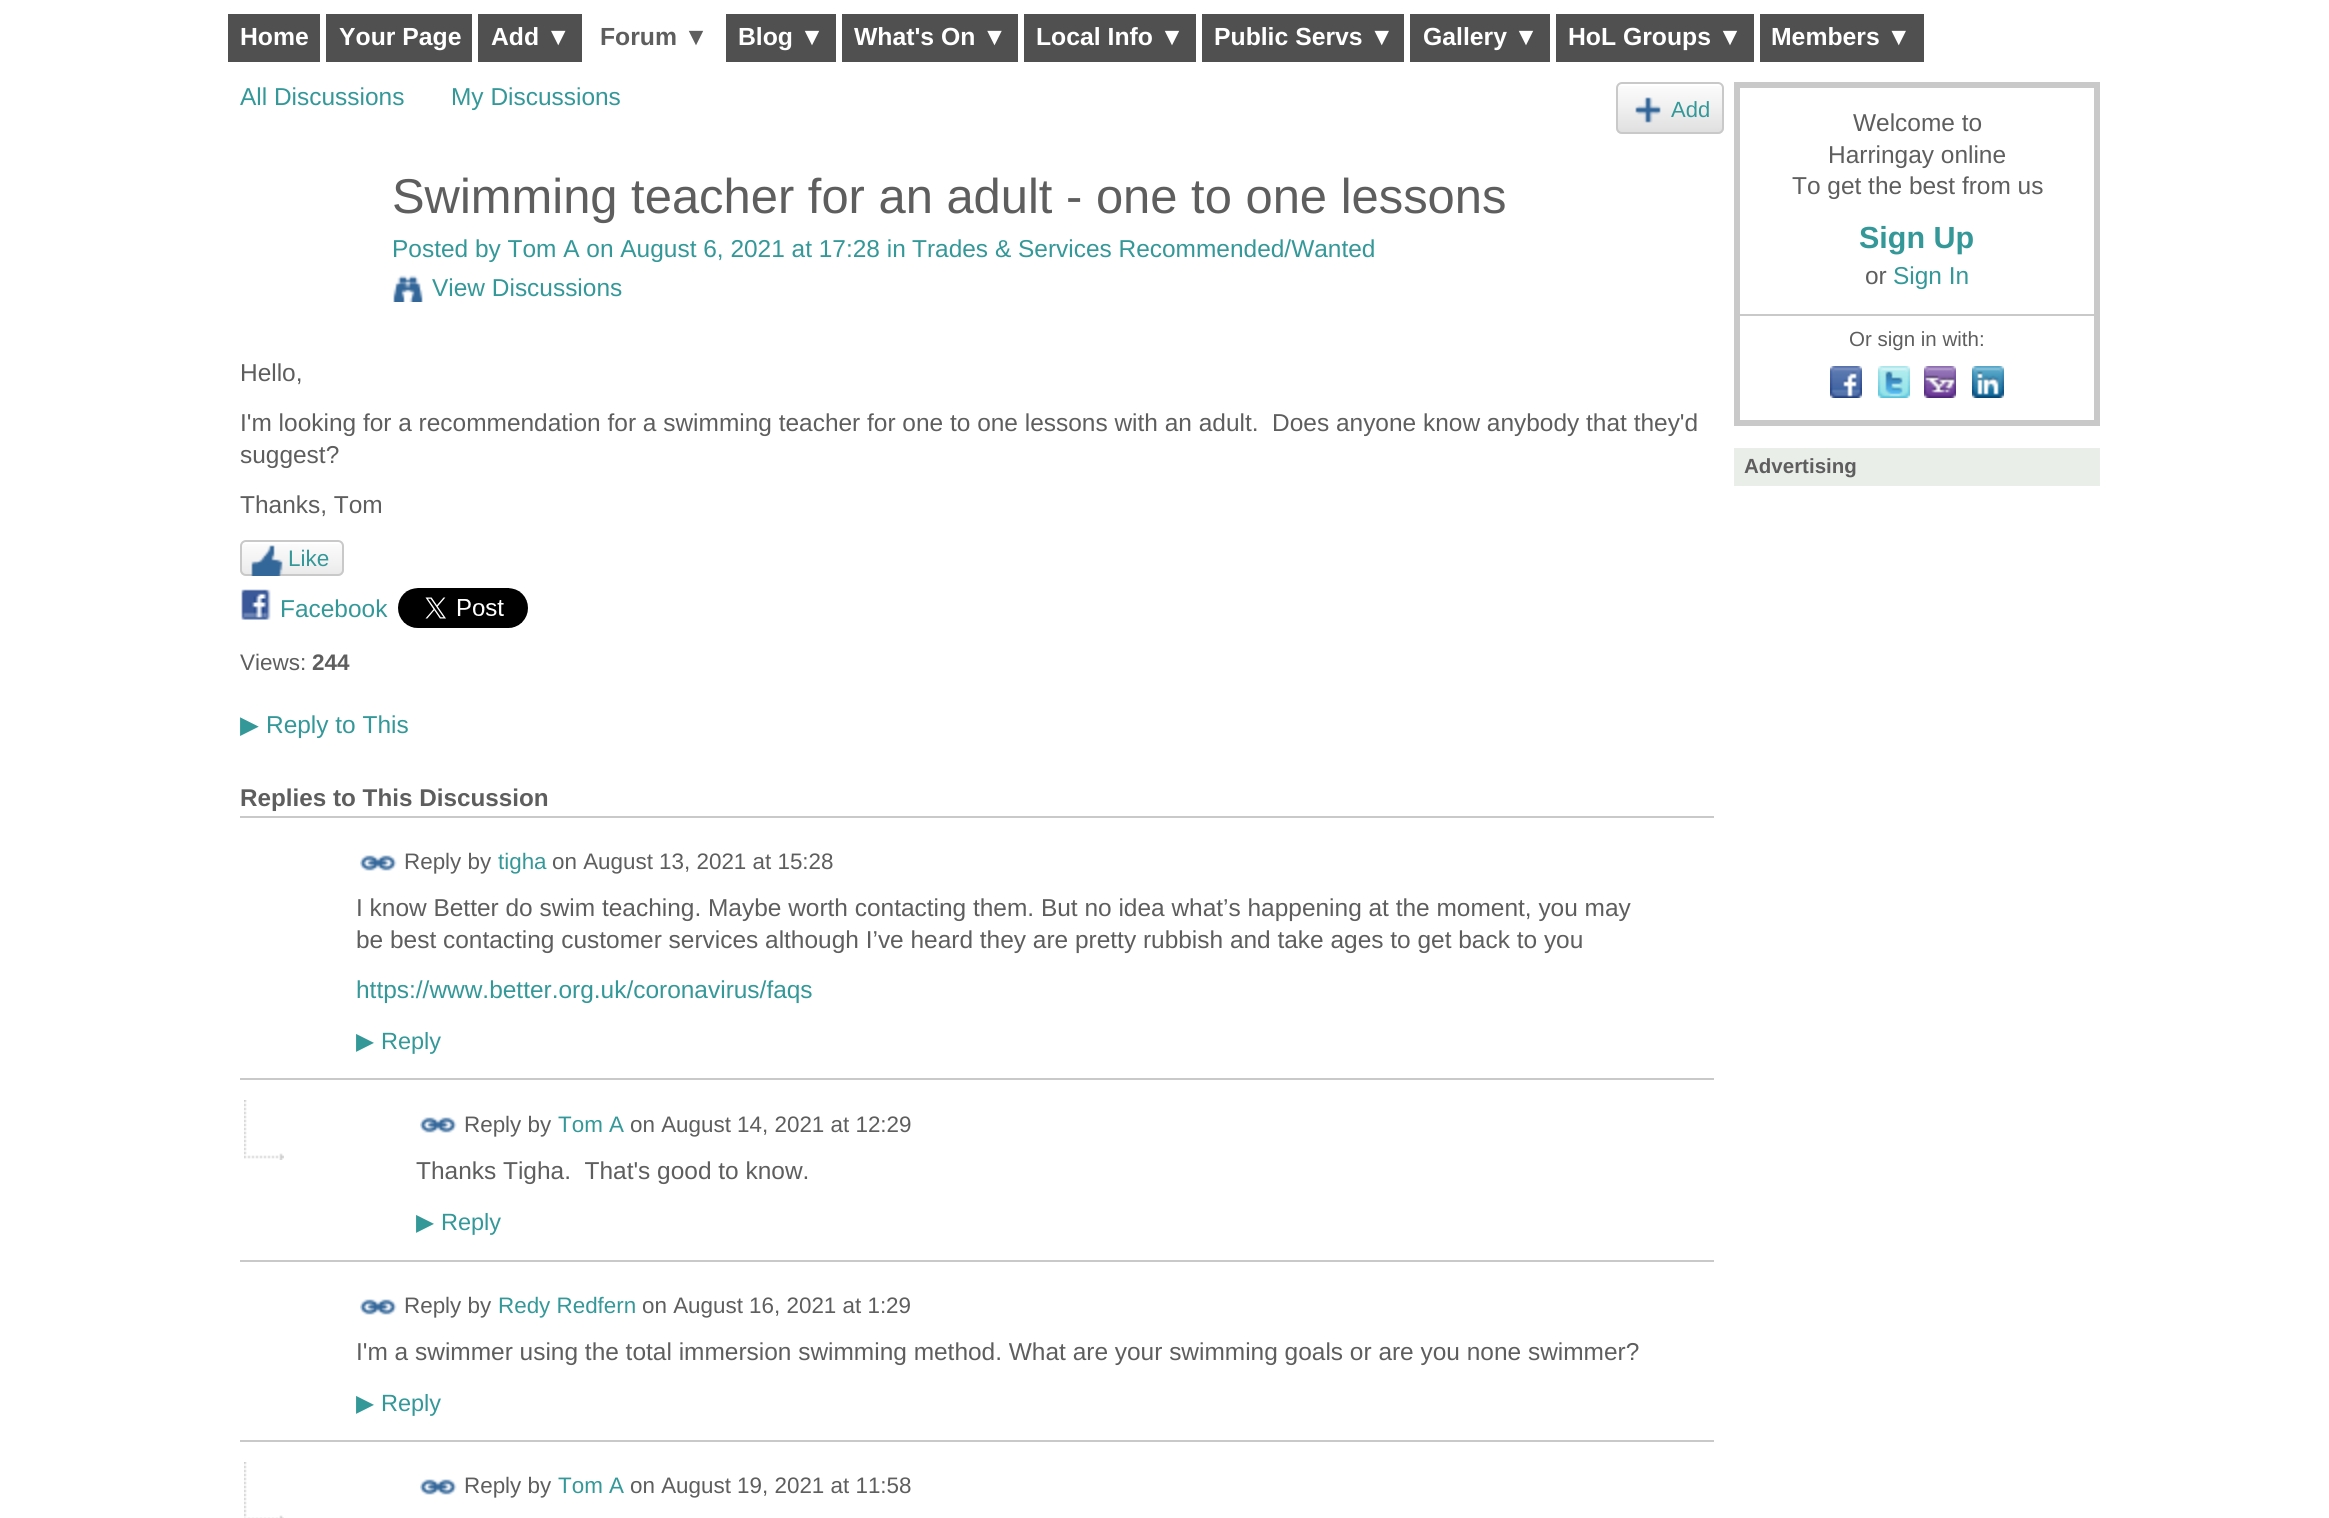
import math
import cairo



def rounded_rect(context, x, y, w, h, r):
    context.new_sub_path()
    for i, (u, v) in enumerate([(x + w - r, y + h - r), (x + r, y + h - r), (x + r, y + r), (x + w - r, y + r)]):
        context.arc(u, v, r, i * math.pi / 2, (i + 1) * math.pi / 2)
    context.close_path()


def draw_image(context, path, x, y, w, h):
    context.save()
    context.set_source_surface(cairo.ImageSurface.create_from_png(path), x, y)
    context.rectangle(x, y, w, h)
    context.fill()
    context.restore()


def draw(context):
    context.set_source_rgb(1, 1, 1)
    context.paint()
    context.set_source_rgb(80 / 255, 80 / 255, 80 / 255)
    context.rectangle(228, 14, 92, 48)
    context.fill()
    context.rectangle(326, 14, 146, 48)
    context.fill()
    context.rectangle(478, 14, 104, 48)
    context.fill()
    context.rectangle(726, 14, 110, 48)
    context.fill()
    context.rectangle(842, 14, 176, 48)
    context.fill()
    context.rectangle(1024, 14, 172, 48)
    context.fill()
    context.rectangle(1202, 14, 202, 48)
    context.fill()
    context.rectangle(1410, 14, 140, 48)
    context.fill()
    context.rectangle(1556, 14, 198, 48)
    context.fill()
    context.rectangle(1760, 14, 164, 48)
    context.fill()
    draw_image(context, "images/1.png", 1616, 86, 108, 48)
    rounded_rect(context, 1617, 83, 106, 50, 5)
    context.set_source_rgb(201 / 255, 201 / 255, 201 / 255)
    context.stroke()
    draw_image(context, "images/2.png", 1635, 97, 26, 26)
    draw_image(context, "images/3.png", 393, 275, 30, 27)
    draw_image(context, "images/4.png", 240, 544, 104, 32)
    rounded_rect(context, 241, 541, 102, 34, 5)
    context.stroke()
    draw_image(context, "images/5.png", 251, 545, 32, 31)
    draw_image(context, "images/6.png", 241, 589, 30, 31)
    draw_image(context, "images/7.png", 398, 588, 130, 40)
    context.rectangle(240, 816, 1474, 2)
    context.fill()
    draw_image(context, "images/8.png", 360, 855, 37, 16)
    draw_image(context, "images/9.png", 244, 1100, 40, 60)
    context.rectangle(240, 1078, 1474, 2)
    context.fill()
    draw_image(context, "images/8.png", 420, 1117, 37, 16)
    context.rectangle(240, 1260, 1474, 2)
    context.fill()
    draw_image(context, "images/8.png", 360, 1299, 37, 16)
    draw_image(context, "images/10.png", 244, 1462, 40, 56)
    context.rectangle(240, 1440, 1474, 2)
    context.fill()
    draw_image(context, "images/8.png", 420, 1479, 37, 16)
    context.rectangle(1737, 85, 360, 338)
    context.set_line_width(6)
    context.stroke()
    context.rectangle(1740, 314, 354, 2)
    context.fill()
    draw_image(context, "images/11.png", 1830, 366, 32, 32)
    draw_image(context, "images/12.png", 1878, 366, 32, 32)
    draw_image(context, "images/13.png", 1924, 366, 32, 32)
    draw_image(context, "images/14.png", 1972, 366, 32, 32)
    context.set_source_rgb(233 / 255, 238 / 255, 232 / 255)
    context.rectangle(1734, 448, 366, 38)
    context.fill()
    context.select_font_face("Liberation Sans", cairo.FontSlant.NORMAL, cairo.FontWeight.BOLD)
    context.set_font_size(24.75)
    context.set_source_rgb(1, 1, 1)
    context.move_to(240, 45)
    context.show_text("Home")
    context.move_to(339, 45)
    context.show_text("Your Page")
    context.move_to(491, 45)
    context.show_text("Add ▼")
    context.set_source_rgb(94 / 255, 94 / 255, 94 / 255)
    context.move_to(600, 45)
    context.show_text("Forum ▼")
    context.set_source_rgb(1, 1, 1)
    context.move_to(738, 45)
    context.show_text("Blog ▼")
    context.move_to(854, 45)
    context.show_text("What's On ▼")
    context.move_to(1036, 45)
    context.show_text("Local Info ▼")
    context.move_to(1214, 45)
    context.show_text("Public Servs ▼")
    context.move_to(1423, 45)
    context.show_text("Gallery ▼")
    context.move_to(1568, 45)
    context.show_text("HoL Groups ▼")
    context.move_to(1771, 45)
    context.show_text("Members ▼")
    context.select_font_face("Liberation Sans")
    context.set_font_size(24.45)
    context.set_source_rgb(52 / 255, 152 / 255, 153 / 255)
    context.move_to(240, 105)
    context.show_text("All Discussions")
    context.move_to(451, 105)
    context.show_text("My Discussions")
    context.set_font_size(22)
    context.move_to(1671, 117)
    context.show_text("Add")
    context.set_font_size(48.9)
    context.set_source_rgb(94 / 255, 94 / 255, 94 / 255)
    context.move_to(392, 213)
    context.show_text("Swimming teacher for an adult - one to one lessons")
    context.set_font_size(24.45)
    context.set_source_rgb(52 / 255, 152 / 255, 153 / 255)
    context.move_to(392, 257)
    context.show_text("Posted by Tom A on August 6, 2021 at 17:28 in")
    context.move_to(912, 257)
    context.show_text("Trades & Services Recommended/Wanted")
    context.move_to(432, 296)
    context.show_text("View Discussions")
    context.set_source_rgb(94 / 255, 94 / 255, 94 / 255)
    context.move_to(240, 381)
    context.show_text("Hello,")
    context.move_to(240, 431)
    context.show_text("I'm looking for a recommendation for a swimming teacher for one to one lessons with an adult.  Does anyone know anybody that they'd")
    context.move_to(240, 463)
    context.show_text("suggest?")
    context.move_to(240, 513)
    context.show_text("Thanks, Tom")
    context.set_font_size(22.5)
    context.set_source_rgb(52 / 255, 152 / 255, 153 / 255)
    context.move_to(288, 566)
    context.show_text("Like")
    context.set_font_size(24.45)
    context.move_to(280, 617)
    context.show_text("Facebook")
    context.set_font_size(22.5)
    context.set_source_rgb(94 / 255, 94 / 255, 94 / 255)
    context.move_to(240, 670)
    context.show_text("Views:")
    context.select_font_face("Liberation Sans", cairo.FontSlant.NORMAL, cairo.FontWeight.BOLD)
    context.move_to(312, 670)
    context.show_text("244")
    context.select_font_face("DejaVu Sans")
    context.set_font_size(24.45)
    context.set_source_rgb(52 / 255, 152 / 255, 153 / 255)
    context.move_to(240, 733)
    context.show_text("▶")
    context.select_font_face("Liberation Sans")
    context.move_to(266, 733)
    context.show_text("Reply to This")
    context.select_font_face("Liberation Sans", cairo.FontSlant.NORMAL, cairo.FontWeight.BOLD)
    context.set_font_size(24.25)
    context.set_source_rgb(94 / 255, 94 / 255, 94 / 255)
    context.move_to(240, 806)
    context.show_text("Replies to This Discussion")
    context.select_font_face("Liberation Sans")
    context.set_font_size(22.4)
    context.move_to(404, 869)
    context.show_text("Reply by")
    context.set_source_rgb(52 / 255, 152 / 255, 153 / 255)
    context.move_to(498, 869)
    context.show_text("tigha")
    context.set_source_rgb(94 / 255, 94 / 255, 94 / 255)
    context.move_to(552, 869)
    context.show_text("on August 13, 2021 at 15:28")
    context.set_font_size(24.45)
    context.move_to(356, 916)
    context.show_text("I know Better do swim teaching. Maybe worth contacting them. But no idea what’s happening at the moment, you may")
    context.move_to(356, 948)
    context.show_text("be best contacting customer services although I’ve heard they are pretty rubbish and take ages to get back to you")
    context.set_source_rgb(52 / 255, 152 / 255, 153 / 255)
    context.move_to(356, 998)
    context.show_text("https://www.better.org.uk/coronavirus/faqs")
    context.select_font_face("DejaVu Sans")
    context.set_font_size(23.5)
    context.move_to(356, 1049)
    context.show_text("▶")
    context.select_font_face("Liberation Sans")
    context.move_to(381, 1049)
    context.show_text("Reply")
    context.set_font_size(22.4)
    context.set_source_rgb(94 / 255, 94 / 255, 94 / 255)
    context.move_to(464, 1132)
    context.show_text("Reply by")
    context.set_source_rgb(52 / 255, 152 / 255, 153 / 255)
    context.move_to(558, 1132)
    context.show_text("Tom A")
    context.set_source_rgb(94 / 255, 94 / 255, 94 / 255)
    context.move_to(630, 1132)
    context.show_text("on August 14, 2021 at 12:29")
    context.set_font_size(24.45)
    context.move_to(416, 1179)
    context.show_text("Thanks Tigha.  That's good to know.")
    context.select_font_face("DejaVu Sans")
    context.set_font_size(23.5)
    context.set_source_rgb(52 / 255, 152 / 255, 153 / 255)
    context.move_to(416, 1230)
    context.show_text("▶")
    context.select_font_face("Liberation Sans")
    context.move_to(441, 1230)
    context.show_text("Reply")
    context.set_font_size(22.4)
    context.set_source_rgb(94 / 255, 94 / 255, 94 / 255)
    context.move_to(404, 1313)
    context.show_text("Reply by")
    context.set_source_rgb(52 / 255, 152 / 255, 153 / 255)
    context.move_to(498, 1313)
    context.show_text("Redy Redfern")
    context.set_source_rgb(94 / 255, 94 / 255, 94 / 255)
    context.move_to(642, 1313)
    context.show_text("on August 16, 2021 at 1:29")
    context.set_font_size(24.45)
    context.move_to(356, 1360)
    context.show_text("I'm a swimmer using the total immersion swimming method. What are your swimming goals or are you none swimmer?")
    context.select_font_face("DejaVu Sans")
    context.set_font_size(23.5)
    context.set_source_rgb(52 / 255, 152 / 255, 153 / 255)
    context.move_to(356, 1411)
    context.show_text("▶")
    context.select_font_face("Liberation Sans")
    context.move_to(381, 1411)
    context.show_text("Reply")
    context.set_font_size(22.4)
    context.set_source_rgb(94 / 255, 94 / 255, 94 / 255)
    context.move_to(464, 1493)
    context.show_text("Reply by")
    context.set_source_rgb(52 / 255, 152 / 255, 153 / 255)
    context.move_to(558, 1493)
    context.show_text("Tom A")
    context.set_source_rgb(94 / 255, 94 / 255, 94 / 255)
    context.move_to(630, 1493)
    context.show_text("on August 19, 2021 at 11:58")
    context.set_font_size(24.45)
    context.move_to(1853, 131)
    context.show_text("Welcome to")
    context.move_to(1828, 163)
    context.show_text("Harringay online")
    context.move_to(1792, 194)
    context.show_text("To get the best from us")
    context.select_font_face("Liberation Sans", cairo.FontSlant.NORMAL, cairo.FontWeight.BOLD)
    context.set_font_size(30.5)
    context.set_source_rgb(52 / 255, 152 / 255, 153 / 255)
    context.move_to(1859, 248)
    context.show_text("Sign Up")
    context.select_font_face("Liberation Sans")
    context.set_font_size(24.45)
    context.set_source_rgb(94 / 255, 94 / 255, 94 / 255)
    context.move_to(1865, 284)
    context.show_text("or")
    context.set_source_rgb(52 / 255, 152 / 255, 153 / 255)
    context.move_to(1893, 284)
    context.show_text("Sign In")
    context.set_font_size(20.5)
    context.set_source_rgb(94 / 255, 94 / 255, 94 / 255)
    context.move_to(1849, 346)
    context.show_text("Or sign in with:")
    context.select_font_face("Liberation Sans", cairo.FontSlant.NORMAL, cairo.FontWeight.BOLD)
    context.move_to(1744, 473)
    context.show_text("Advertising")


surface = cairo.ImageSurface(cairo.Format.RGB24, 2329, 1518)
context = cairo.Context(surface)
options = cairo.FontOptions()
options.set_hint_metrics(cairo.HintMetrics.OFF)
options.set_hint_style(cairo.HintStyle.NONE)
context.set_font_options(options)
context.set_miter_limit(4)
draw(context)
surface.write_to_png("out.png")
